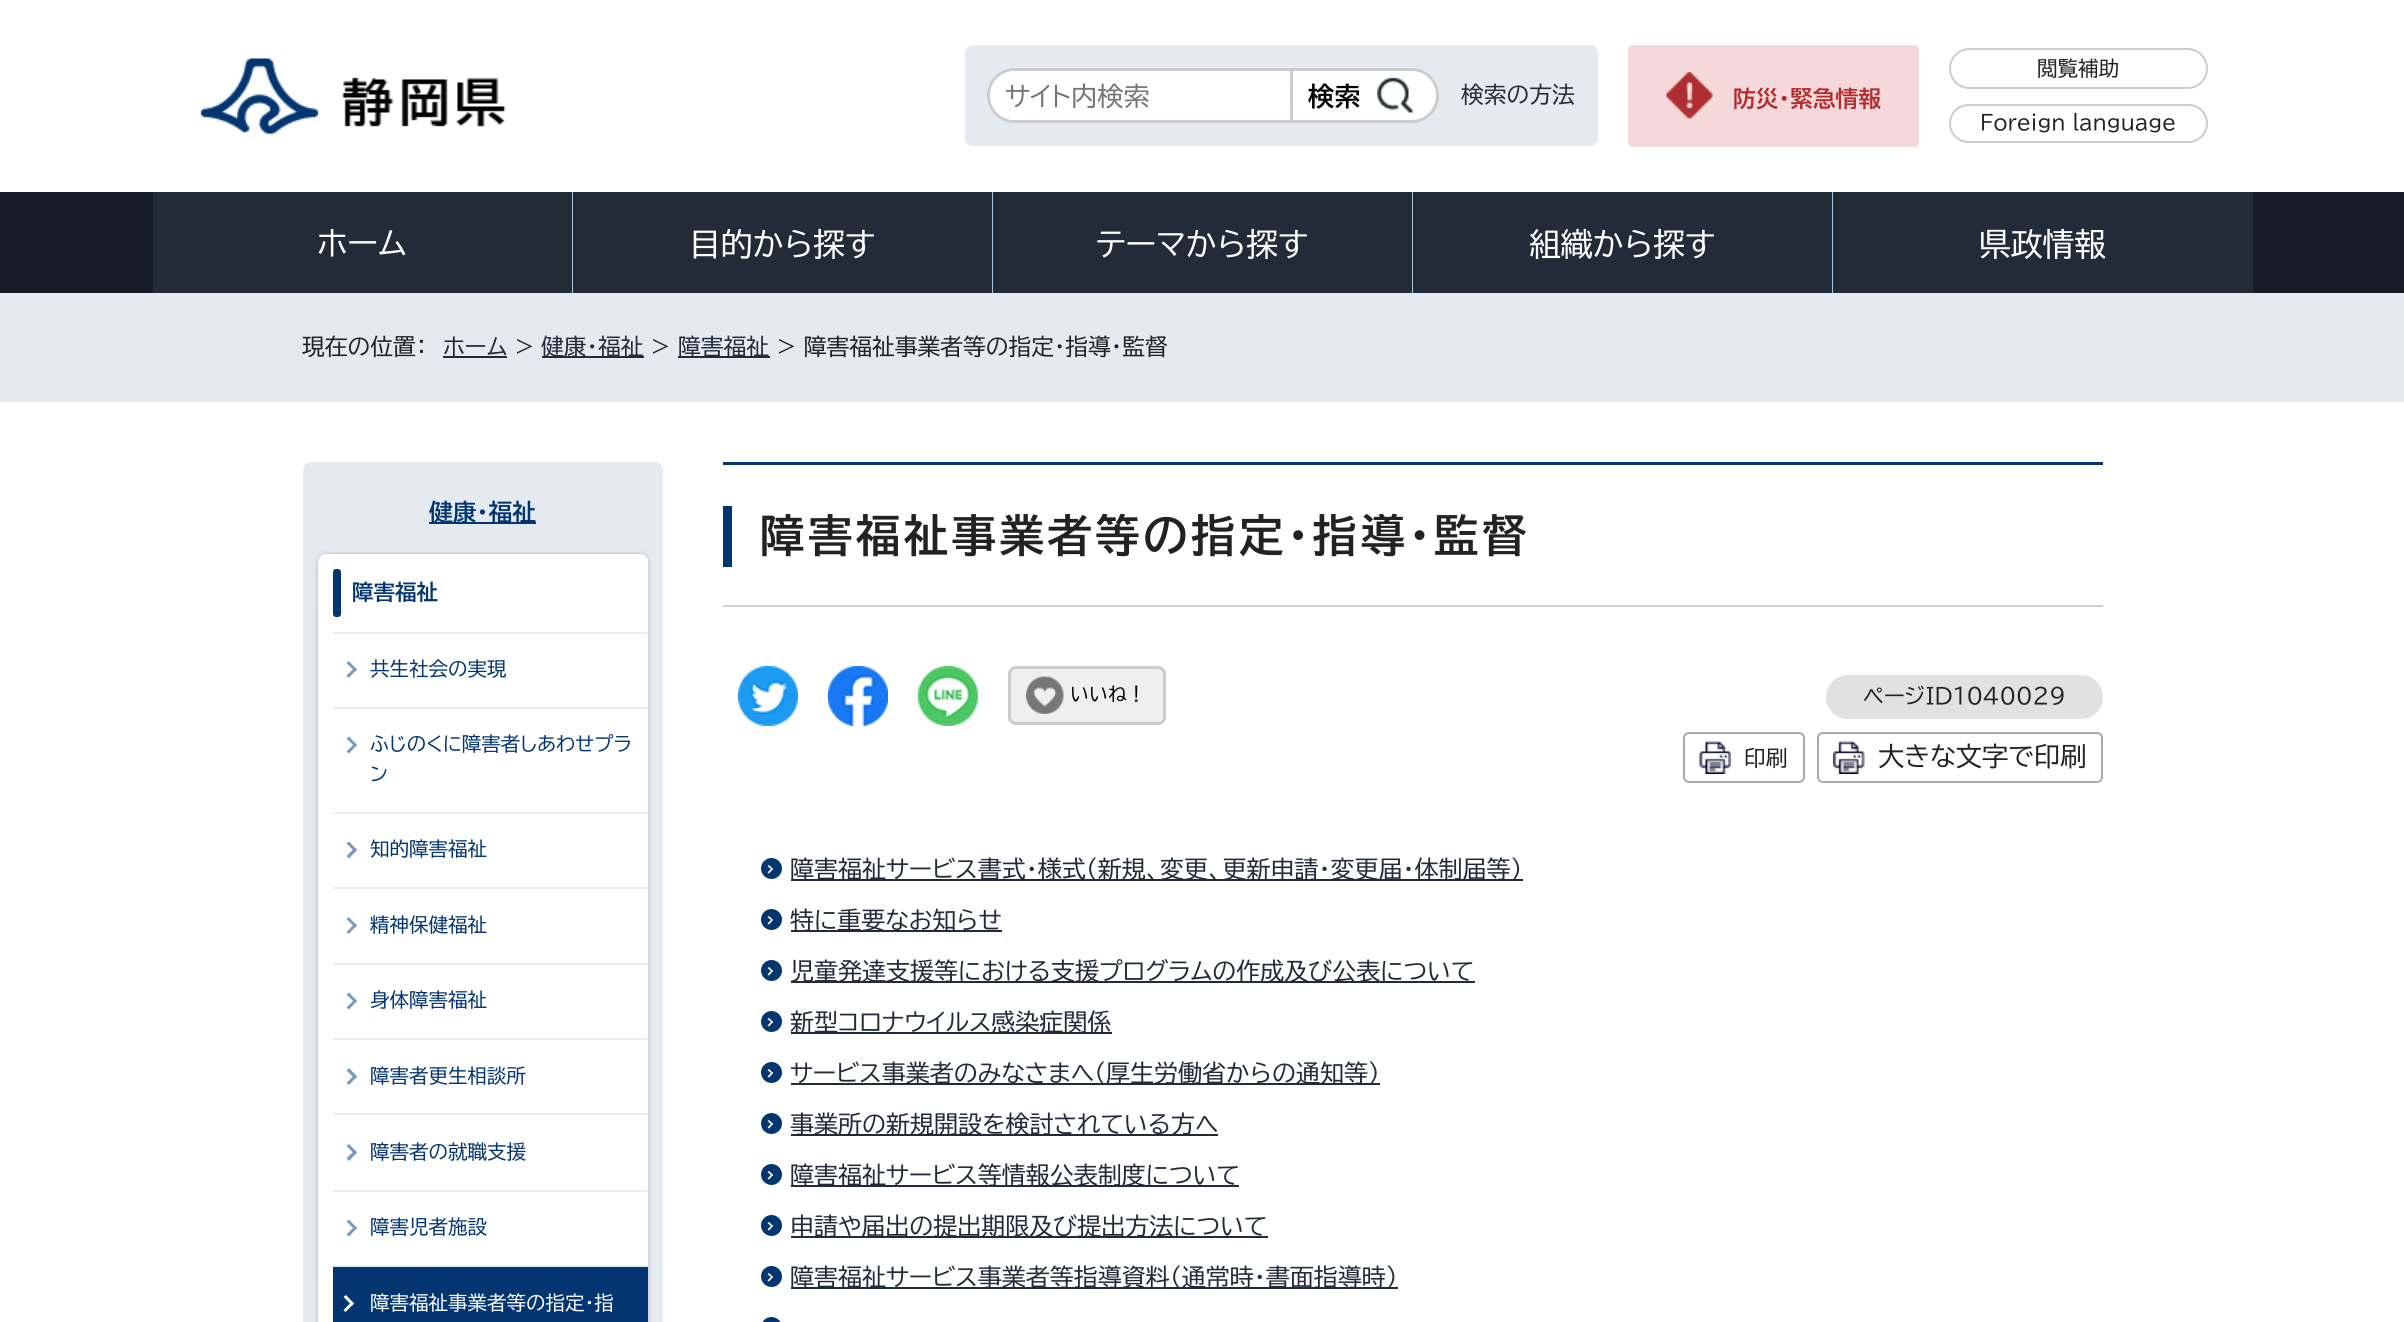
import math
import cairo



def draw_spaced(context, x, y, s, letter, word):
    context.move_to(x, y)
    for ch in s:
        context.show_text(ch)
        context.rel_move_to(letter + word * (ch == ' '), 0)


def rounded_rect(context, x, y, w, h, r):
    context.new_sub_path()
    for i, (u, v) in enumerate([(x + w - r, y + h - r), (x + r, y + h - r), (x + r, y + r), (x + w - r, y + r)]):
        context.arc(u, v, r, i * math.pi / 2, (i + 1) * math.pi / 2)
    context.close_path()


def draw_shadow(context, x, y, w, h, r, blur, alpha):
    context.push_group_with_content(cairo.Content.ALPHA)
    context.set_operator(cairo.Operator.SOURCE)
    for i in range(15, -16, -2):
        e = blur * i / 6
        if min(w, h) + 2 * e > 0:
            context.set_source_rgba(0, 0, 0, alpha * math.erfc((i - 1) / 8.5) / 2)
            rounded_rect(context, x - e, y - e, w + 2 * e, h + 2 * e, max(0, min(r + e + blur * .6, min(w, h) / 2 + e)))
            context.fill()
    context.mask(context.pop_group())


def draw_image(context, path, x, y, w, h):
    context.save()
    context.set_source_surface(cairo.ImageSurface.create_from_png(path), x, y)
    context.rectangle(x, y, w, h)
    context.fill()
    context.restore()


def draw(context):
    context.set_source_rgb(1, 1, 1)
    context.paint()
    draw_image(context, "images/1.png", 199, 57, 307, 79)
    context.set_source_rgb(229 / 255, 234 / 255, 240 / 255)
    rounded_rect(context, 965, 45, 633, 101, 8)
    context.fill()
    rounded_rect(context, 988.5, 69.5, 449, 52, 26)
    context.set_source_rgb(204 / 255, 204 / 255, 204 / 255)
    context.set_line_width(3)
    context.stroke()
    context.set_source_rgb(1, 1, 1)
    context.new_path()
    context.move_to(1014.5, 71)
    context.line_to(1290, 71)
    context.line_to(1290, 120)
    context.line_to(1014.5, 120)
    context.curve_to(1001, 120, 990, 109, 990, 95.5)
    context.curve_to(990, 82, 1001, 71, 1014.5, 71)
    context.close_path()
    context.fill()
    context.new_path()
    context.move_to(1290, 71)
    context.line_to(1411.5, 71)
    context.curve_to(1425, 71, 1436, 82, 1436, 95.5)
    context.curve_to(1436, 109, 1425, 120, 1411.5, 120)
    context.line_to(1290, 120)
    context.close_path()
    context.fill()
    draw_image(context, "images/2.png", 1377, 77, 36, 36)
    context.set_source_rgb(204 / 255, 204 / 255, 204 / 255)
    context.rectangle(1290, 71, 3, 49)
    context.fill()
    context.set_source_rgb(245 / 255, 216 / 255, 218 / 255)
    rounded_rect(context, 1628, 45, 291, 102, 5)
    context.fill()
    draw_image(context, "images/3.png", 1666, 72, 47, 47)
    rounded_rect(context, 1950, 49, 257, 39, 19.5)
    context.set_source_rgb(204 / 255, 204 / 255, 204 / 255)
    context.set_line_width(2)
    context.stroke()
    rounded_rect(context, 1950, 105, 257, 37, 18.5)
    context.stroke()
    context.set_source_rgb(22 / 255, 28 / 255, 37 / 255)
    context.rectangle(0, 192, 2404, 101)
    context.fill()
    context.set_source_rgb(173 / 255, 199 / 255, 221 / 255)
    context.rectangle(572, 192, 1, 101)
    context.fill()
    context.set_source_rgb(35 / 255, 43 / 255, 57 / 255)
    context.rectangle(153, 192, 419, 101)
    context.fill()
    context.set_source_rgb(173 / 255, 199 / 255, 221 / 255)
    context.rectangle(992, 192, 1, 101)
    context.fill()
    context.set_source_rgb(35 / 255, 43 / 255, 57 / 255)
    context.rectangle(573, 192, 419, 101)
    context.fill()
    context.set_source_rgb(173 / 255, 199 / 255, 221 / 255)
    context.rectangle(1412, 192, 1, 101)
    context.fill()
    context.set_source_rgb(35 / 255, 43 / 255, 57 / 255)
    context.rectangle(993, 192, 419, 101)
    context.fill()
    context.set_source_rgb(173 / 255, 199 / 255, 221 / 255)
    context.rectangle(1832, 192, 1, 101)
    context.fill()
    context.set_source_rgb(35 / 255, 43 / 255, 57 / 255)
    context.rectangle(1413, 192, 419, 101)
    context.fill()
    context.rectangle(1833, 192, 420, 101)
    context.fill()
    context.set_source_rgb(229 / 255, 234 / 255, 240 / 255)
    context.rectangle(0, 293, 2404, 109)
    context.fill()
    context.set_source_rgb(35 / 255, 43 / 255, 57 / 255)
    context.rectangle(443, 356, 64, 2)
    context.fill()
    context.rectangle(542, 356, 102, 2)
    context.fill()
    context.rectangle(678, 356, 92, 2)
    context.fill()
    context.set_source_rgb(229 / 255, 234 / 255, 240 / 255)
    rounded_rect(context, 303, 462, 360, 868, 8)
    context.fill()
    context.set_source_rgb(3 / 255, 53 / 255, 112 / 255)
    context.rectangle(429, 522, 107, 2)
    context.fill()
    context.set_source_rgb(170 / 255, 170 / 255, 170 / 255)
    draw_shadow(context, 318, 554, 330, 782, 8, 2, 1)
    context.set_source_rgb(1, 1, 1)
    rounded_rect(context, 318, 554, 330, 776, 8)
    context.fill()
    context.new_path()
    context.move_to(326, 554)
    context.line_to(640, 554)
    context.curve_to(644.5, 554, 648, 557.5, 648, 562)
    context.line_to(648, 632)
    context.line_to(318, 632)
    context.line_to(318, 562)
    context.curve_to(318, 557.5, 321.5, 554, 326, 554)
    context.close_path()
    context.fill()
    context.set_source_rgb(3 / 255, 53 / 255, 112 / 255)
    rounded_rect(context, 333, 569, 8, 48, 3)
    context.fill()
    context.set_source_rgb(236 / 255, 236 / 255, 236 / 255)
    context.rectangle(333, 632, 315, 2)
    context.fill()
    context.set_source_rgb(121 / 255, 154 / 255, 187 / 255)
    context.new_path()
    context.move_to(348.5, 661)
    context.line_to(357, 669.5)
    context.line_to(355, 671.5)
    context.line_to(346.5, 663)
    context.close_path()
    context.fill()
    context.new_path()
    context.move_to(355, 667.5)
    context.line_to(357, 669.5)
    context.line_to(348.5, 678)
    context.line_to(346.5, 675.5)
    context.close_path()
    context.fill()
    context.set_source_rgb(236 / 255, 236 / 255, 236 / 255)
    context.rectangle(333, 707, 315, 2)
    context.fill()
    context.set_source_rgb(121 / 255, 154 / 255, 187 / 255)
    context.new_path()
    context.move_to(349, 736.5)
    context.line_to(357, 745)
    context.line_to(355, 747)
    context.line_to(346.5, 738.5)
    context.close_path()
    context.fill()
    context.new_path()
    context.move_to(355, 743)
    context.line_to(357, 745)
    context.line_to(349, 753.5)
    context.line_to(346.5, 751.5)
    context.close_path()
    context.fill()
    context.set_source_rgb(236 / 255, 236 / 255, 236 / 255)
    context.rectangle(333, 812, 315, 2)
    context.fill()
    context.set_source_rgb(121 / 255, 154 / 255, 187 / 255)
    context.new_path()
    context.move_to(349, 841.5)
    context.line_to(357, 850)
    context.line_to(355, 852)
    context.line_to(346.5, 843.5)
    context.close_path()
    context.fill()
    context.new_path()
    context.move_to(355, 847.5)
    context.line_to(357, 850)
    context.line_to(349, 858.5)
    context.line_to(346.5, 856)
    context.close_path()
    context.fill()
    context.set_source_rgb(236 / 255, 236 / 255, 236 / 255)
    context.rectangle(333, 887, 315, 2)
    context.fill()
    context.set_source_rgb(121 / 255, 154 / 255, 187 / 255)
    context.new_path()
    context.move_to(348.5, 917)
    context.line_to(357, 925.5)
    context.line_to(355, 927.5)
    context.line_to(346.5, 919)
    context.close_path()
    context.fill()
    context.new_path()
    context.move_to(355, 923.5)
    context.line_to(357, 925.5)
    context.line_to(348.5, 934)
    context.line_to(346.5, 932)
    context.close_path()
    context.fill()
    context.set_source_rgb(236 / 255, 236 / 255, 236 / 255)
    context.rectangle(333, 963, 315, 2)
    context.fill()
    context.set_source_rgb(121 / 255, 154 / 255, 187 / 255)
    context.new_path()
    context.move_to(349, 992.5)
    context.line_to(357, 1001)
    context.line_to(355, 1003)
    context.line_to(346.5, 994.5)
    context.close_path()
    context.fill()
    context.new_path()
    context.move_to(355, 999)
    context.line_to(357, 1001)
    context.line_to(349, 1009.5)
    context.line_to(346.5, 1007.5)
    context.close_path()
    context.fill()
    context.set_source_rgb(236 / 255, 236 / 255, 236 / 255)
    context.rectangle(333, 1038, 315, 2)
    context.fill()
    context.set_source_rgb(121 / 255, 154 / 255, 187 / 255)
    context.new_path()
    context.move_to(349, 1068)
    context.line_to(357, 1076.5)
    context.line_to(355, 1079)
    context.line_to(346.5, 1070.5)
    context.close_path()
    context.fill()
    context.new_path()
    context.move_to(355, 1074.5)
    context.line_to(357, 1076.5)
    context.line_to(349, 1085)
    context.line_to(346.5, 1083)
    context.close_path()
    context.fill()
    context.set_source_rgb(236 / 255, 236 / 255, 236 / 255)
    context.rectangle(333, 1113, 315, 2)
    context.fill()
    context.set_source_rgb(121 / 255, 154 / 255, 187 / 255)
    context.new_path()
    context.move_to(349, 1144)
    context.line_to(357, 1152.5)
    context.line_to(355, 1154.5)
    context.line_to(346.5, 1146)
    context.close_path()
    context.fill()
    context.new_path()
    context.move_to(355, 1150)
    context.line_to(357, 1152.5)
    context.line_to(349, 1161)
    context.line_to(346.5, 1158.5)
    context.close_path()
    context.fill()
    context.set_source_rgb(236 / 255, 236 / 255, 236 / 255)
    context.rectangle(333, 1190, 315, 2)
    context.fill()
    context.set_source_rgb(121 / 255, 154 / 255, 187 / 255)
    context.new_path()
    context.move_to(349, 1219.5)
    context.line_to(357, 1228)
    context.line_to(355, 1230)
    context.line_to(346.5, 1221.5)
    context.close_path()
    context.fill()
    context.new_path()
    context.move_to(355, 1226)
    context.line_to(357, 1228)
    context.line_to(349, 1236.5)
    context.line_to(346.5, 1234.5)
    context.close_path()
    context.fill()
    context.set_source_rgb(3 / 255, 53 / 255, 112 / 255)
    context.rectangle(333, 1267, 315, 55)
    context.fill()
    context.set_source_rgb(236 / 255, 236 / 255, 236 / 255)
    context.rectangle(333, 1265, 315, 2)
    context.fill()
    context.set_source_rgb(1, 1, 1)
    context.new_path()
    context.move_to(346, 1295)
    context.line_to(354, 1303.5)
    context.line_to(352, 1305.5)
    context.line_to(343.5, 1297)
    context.close_path()
    context.fill()
    context.new_path()
    context.move_to(352, 1301.5)
    context.line_to(354, 1303.5)
    context.line_to(345.5, 1312)
    context.line_to(343.5, 1310)
    context.close_path()
    context.fill()
    context.set_source_rgb(3 / 255, 53 / 255, 112 / 255)
    context.rectangle(723, 462, 1380, 3)
    context.fill()
    context.set_source_rgb(208 / 255, 208 / 255, 208 / 255)
    context.rectangle(723, 605, 1380, 2)
    context.fill()
    context.set_source_rgb(3 / 255, 53 / 255, 112 / 255)
    context.rectangle(723, 506, 9, 61)
    context.fill()
    draw_image(context, "images/4.png", 738, 666, 60, 60)
    draw_image(context, "images/5.png", 828, 666, 60, 60)
    draw_image(context, "images/6.png", 918, 666, 60, 60)
    context.set_source_rgb(239 / 255, 239 / 255, 239 / 255)
    rounded_rect(context, 1008, 666, 158, 59, 8)
    context.fill()
    draw_image(context, "images/7.png", 1026, 676, 38, 38)
    rounded_rect(context, 1009.5, 667.5, 155, 56, 6.5)
    context.set_source_rgb(204 / 255, 204 / 255, 204 / 255)
    context.set_line_width(3)
    context.stroke()
    context.set_source_rgb(225 / 255, 225 / 255, 225 / 255)
    rounded_rect(context, 1826, 675, 277, 44, 22)
    context.fill()
    rounded_rect(context, 1684, 733, 120, 49, 5)
    context.set_source_rgb(170 / 255, 170 / 255, 170 / 255)
    context.set_line_width(2)
    context.stroke()
    draw_image(context, "images/8.png", 1699, 741, 32, 33)
    rounded_rect(context, 1818, 733, 284, 49, 5)
    context.stroke()
    draw_image(context, "images/9.png", 1833, 741, 32, 33)
    context.set_source_rgb(3 / 255, 53 / 255, 112 / 255)
    context.arc(771.5, 868.5, 10.5, 0, 2 * math.pi)
    context.fill()
    context.set_source_rgb(35 / 255, 43 / 255, 57 / 255)
    context.rectangle(791, 879, 732, 2)
    context.fill()
    context.set_source_rgb(1, 1, 1)
    context.new_path()
    context.move_to(769, 865)
    context.line_to(773, 869)
    context.line_to(772, 870)
    context.line_to(767.5, 866)
    context.close_path()
    context.fill()
    context.new_path()
    context.move_to(772, 868)
    context.line_to(773, 869)
    context.line_to(769, 873.5)
    context.line_to(767.5, 872.5)
    context.close_path()
    context.fill()
    context.set_source_rgb(3 / 255, 53 / 255, 112 / 255)
    context.arc(771.5, 919.5, 10.5, 0, 2 * math.pi)
    context.fill()
    context.set_source_rgb(35 / 255, 43 / 255, 57 / 255)
    context.rectangle(791, 930, 211, 2)
    context.fill()
    context.set_source_rgb(1, 1, 1)
    context.new_path()
    context.move_to(769, 916)
    context.line_to(773, 920)
    context.line_to(772, 921)
    context.line_to(767.5, 917)
    context.close_path()
    context.fill()
    context.new_path()
    context.move_to(772, 919)
    context.line_to(773, 920)
    context.line_to(769, 924.5)
    context.line_to(767.5, 923.5)
    context.close_path()
    context.fill()
    context.set_source_rgb(3 / 255, 53 / 255, 112 / 255)
    context.arc(771.5, 970.5, 10.5, 0, 2 * math.pi)
    context.fill()
    context.set_source_rgb(35 / 255, 43 / 255, 57 / 255)
    context.rectangle(791, 981, 684, 2)
    context.fill()
    context.set_source_rgb(1, 1, 1)
    context.new_path()
    context.move_to(769, 967)
    context.line_to(773, 971)
    context.line_to(772, 972)
    context.line_to(767.5, 968)
    context.close_path()
    context.fill()
    context.new_path()
    context.move_to(772, 970)
    context.line_to(773, 971)
    context.line_to(769, 975.5)
    context.line_to(767.5, 974.5)
    context.close_path()
    context.fill()
    context.set_source_rgb(3 / 255, 53 / 255, 112 / 255)
    context.arc(771.5, 1021.5, 10.5, 0, 2 * math.pi)
    context.fill()
    context.set_source_rgb(35 / 255, 43 / 255, 57 / 255)
    context.rectangle(791, 1032, 321, 2)
    context.fill()
    context.set_source_rgb(1, 1, 1)
    context.new_path()
    context.move_to(769, 1018)
    context.line_to(773, 1022)
    context.line_to(772, 1023)
    context.line_to(767.5, 1019)
    context.close_path()
    context.fill()
    context.new_path()
    context.move_to(772, 1021)
    context.line_to(773, 1022)
    context.line_to(769, 1026.5)
    context.line_to(767.5, 1025.5)
    context.close_path()
    context.fill()
    context.set_source_rgb(3 / 255, 53 / 255, 112 / 255)
    context.arc(771.5, 1072.5, 10.5, 0, 2 * math.pi)
    context.fill()
    context.set_source_rgb(35 / 255, 43 / 255, 57 / 255)
    context.rectangle(791, 1083, 589, 2)
    context.fill()
    context.set_source_rgb(1, 1, 1)
    context.new_path()
    context.move_to(769, 1069)
    context.line_to(773, 1073)
    context.line_to(772, 1074)
    context.line_to(767.5, 1070)
    context.close_path()
    context.fill()
    context.new_path()
    context.move_to(772, 1072)
    context.line_to(773, 1073)
    context.line_to(769, 1077.5)
    context.line_to(767.5, 1076.5)
    context.close_path()
    context.fill()
    context.set_source_rgb(3 / 255, 53 / 255, 112 / 255)
    context.arc(771.5, 1123.5, 10.5, 0, 2 * math.pi)
    context.fill()
    context.set_source_rgb(35 / 255, 43 / 255, 57 / 255)
    context.rectangle(791, 1134, 427, 2)
    context.fill()
    context.set_source_rgb(1, 1, 1)
    context.new_path()
    context.move_to(769, 1120)
    context.line_to(773, 1124)
    context.line_to(772, 1125)
    context.line_to(767.5, 1121)
    context.close_path()
    context.fill()
    context.new_path()
    context.move_to(772, 1123)
    context.line_to(773, 1124)
    context.line_to(769, 1128.5)
    context.line_to(767.5, 1127.5)
    context.close_path()
    context.fill()
    context.set_source_rgb(3 / 255, 53 / 255, 112 / 255)
    context.arc(771.5, 1174.5, 10.5, 0, 2 * math.pi)
    context.fill()
    context.set_source_rgb(35 / 255, 43 / 255, 57 / 255)
    context.rectangle(791, 1185, 448, 2)
    context.fill()
    context.set_source_rgb(1, 1, 1)
    context.new_path()
    context.move_to(769, 1171)
    context.line_to(773, 1175)
    context.line_to(772, 1176)
    context.line_to(767.5, 1172)
    context.close_path()
    context.fill()
    context.new_path()
    context.move_to(772, 1174)
    context.line_to(773, 1175)
    context.line_to(769, 1179.5)
    context.line_to(767.5, 1178.5)
    context.close_path()
    context.fill()
    context.set_source_rgb(3 / 255, 53 / 255, 112 / 255)
    context.arc(771.5, 1225.5, 10.5, 0, 2 * math.pi)
    context.fill()
    context.set_source_rgb(35 / 255, 43 / 255, 57 / 255)
    context.rectangle(791, 1236, 477, 2)
    context.fill()
    context.set_source_rgb(1, 1, 1)
    context.new_path()
    context.move_to(769, 1222)
    context.line_to(773, 1226)
    context.line_to(772, 1227)
    context.line_to(767.5, 1223)
    context.close_path()
    context.fill()
    context.new_path()
    context.move_to(772, 1225)
    context.line_to(773, 1226)
    context.line_to(769, 1230.5)
    context.line_to(767.5, 1229.5)
    context.close_path()
    context.fill()
    context.set_source_rgb(3 / 255, 53 / 255, 112 / 255)
    context.arc(771.5, 1276.5, 10.5, 0, 2 * math.pi)
    context.fill()
    context.set_source_rgb(35 / 255, 43 / 255, 57 / 255)
    context.rectangle(791, 1287, 607, 2)
    context.fill()
    context.set_source_rgb(1, 1, 1)
    context.new_path()
    context.move_to(769, 1273)
    context.line_to(773, 1277)
    context.line_to(772, 1278)
    context.line_to(767.5, 1274)
    context.close_path()
    context.fill()
    context.new_path()
    context.move_to(772, 1276)
    context.line_to(773, 1277)
    context.line_to(769, 1281.5)
    context.line_to(767.5, 1280.5)
    context.close_path()
    context.fill()
    context.set_source_rgb(3 / 255, 53 / 255, 112 / 255)
    rounded_rect(context, 761, 1317, 21, 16, 10.5)
    context.fill()
    context.save()
    context.rectangle(1005, 83, 270, 25)
    context.clip()
    context.select_font_face("BIZ UDPGothic")
    context.set_font_size(26.25)
    context.set_source_rgb(117 / 255, 117 / 255, 117 / 255)
    context.move_to(1005, 106)
    context.show_text("サイト内検索")
    context.restore()
    context.select_font_face("BIZ UDPGothic", cairo.FontSlant.NORMAL, cairo.FontWeight.BOLD)
    context.set_font_size(26.25)
    context.set_source_rgb(0, 0, 0)
    context.move_to(1308, 106)
    context.show_text("検索")
    context.select_font_face("BIZ UDPGothic")
    context.set_font_size(22.75)
    context.set_source_rgb(35 / 255, 43 / 255, 57 / 255)
    context.move_to(1461, 103)
    context.show_text("検索の方法")
    context.select_font_face("BIZ UDPGothic", cairo.FontSlant.NORMAL, cairo.FontWeight.BOLD)
    context.set_source_rgb(178 / 255, 43 / 255, 47 / 255)
    context.move_to(1733, 107)
    context.show_text("防災・緊急情報")
    context.select_font_face("BIZ UDPGothic")
    context.set_font_size(20.5)
    context.set_source_rgb(34 / 255, 34 / 255, 34 / 255)
    context.move_to(2037, 76)
    context.show_text("閲覧補助")
    context.move_to(1980, 130)
    context.show_text("Foreign language")
    context.set_font_size(31.75)
    context.set_source_rgb(1, 1, 1)
    context.move_to(317, 255)
    context.show_text("ホーム")
    context.move_to(689, 256)
    context.show_text("目的から探す")
    context.move_to(1096, 256)
    context.show_text("テーマから探す")
    context.move_to(1529, 256)
    context.show_text("組織から探す")
    context.move_to(1979, 256)
    context.show_text("県政情報")
    context.set_font_size(22.75)
    context.set_source_rgb(34 / 255, 34 / 255, 34 / 255)
    context.move_to(302, 355)
    context.show_text("現在の位置：")
    context.set_source_rgb(35 / 255, 43 / 255, 57 / 255)
    context.move_to(443, 355)
    context.show_text("ホーム")
    context.set_source_rgb(34 / 255, 34 / 255, 34 / 255)
    context.move_to(515, 355)
    context.show_text(">")
    context.set_source_rgb(35 / 255, 43 / 255, 57 / 255)
    context.move_to(541, 355)
    context.show_text("健康・福祉")
    context.set_source_rgb(34 / 255, 34 / 255, 34 / 255)
    context.move_to(651, 355)
    context.show_text(">")
    context.set_source_rgb(35 / 255, 43 / 255, 57 / 255)
    context.move_to(678, 355)
    context.show_text("障害福祉")
    context.set_source_rgb(34 / 255, 34 / 255, 34 / 255)
    context.move_to(777, 355)
    context.show_text("> 障害福祉事業者等の指定・指導・監督")
    context.select_font_face("BIZ UDPGothic", cairo.FontSlant.NORMAL, cairo.FontWeight.BOLD)
    context.set_font_size(23.75)
    context.set_source_rgb(3 / 255, 53 / 255, 112 / 255)
    context.move_to(429, 521)
    context.show_text("健康・福祉")
    context.set_font_size(21.5)
    context.move_to(352, 600)
    context.show_text("障害福祉")
    context.select_font_face("BIZ UDPGothic")
    context.set_font_size(19.5)
    context.move_to(370, 676)
    context.show_text("共生社会の実現")
    context.move_to(370, 751)
    context.show_text("ふじのくに障害者しあわせプラ")
    context.move_to(370, 781)
    context.show_text("ン")
    context.move_to(370, 856)
    context.show_text("知的障害福祉")
    context.move_to(370, 932)
    context.show_text("精神保健福祉")
    context.move_to(370, 1007)
    context.show_text("身体障害福祉")
    context.move_to(370, 1083)
    context.show_text("障害者更生相談所")
    context.move_to(370, 1159)
    context.show_text("障害者の就職支援")
    context.move_to(370, 1234)
    context.show_text("障害児者施設")
    context.set_source_rgb(1, 1, 1)
    context.move_to(370, 1310)
    context.show_text("障害福祉事業者等の指定・指")
    context.select_font_face("BIZ UDPGothic", cairo.FontSlant.NORMAL, cairo.FontWeight.BOLD)
    context.set_font_size(44.4)
    context.set_source_rgb(34 / 255, 34 / 255, 34 / 255)
    draw_spaced(context, 760, 552, "障害福祉事業者等の指定・指導・監督", 3.5, 0)
    context.select_font_face("BIZ UDPGothic")
    context.set_font_size(19)
    context.set_source_rgb(0, 0, 0)
    context.move_to(1070, 701)
    context.show_text("いいね！")
    context.set_font_size(21.75)
    context.set_source_rgb(34 / 255, 34 / 255, 34 / 255)
    context.move_to(1863, 704)
    context.show_text("ページID1040029")
    context.move_to(1744, 766)
    context.show_text("印刷")
    context.set_font_size(26.25)
    context.move_to(1878, 766)
    context.show_text("大きな文字で印刷")
    context.set_font_size(24)
    context.set_source_rgb(35 / 255, 43 / 255, 57 / 255)
    context.move_to(790, 878)
    context.show_text("障害福祉サービス書式・様式（新規、変更、更新申請・変更届・体制届等）")
    context.move_to(790, 929)
    context.show_text("特に重要なお知らせ")
    context.move_to(790, 980)
    context.show_text("児童発達支援等における支援プログラムの作成及び公表について")
    context.move_to(790, 1031)
    context.show_text("新型コロナウイルス感染症関係")
    context.move_to(790, 1082)
    context.show_text("サービス事業者のみなさまへ(厚生労働省からの通知等)")
    context.move_to(790, 1133)
    context.show_text("事業所の新規開設を検討されている方へ")
    context.move_to(790, 1184)
    context.show_text("障害福祉サービス等情報公表制度について")
    context.move_to(790, 1235)
    context.show_text("申請や届出の提出期限及び提出方法について")
    context.move_to(790, 1286)
    context.show_text("障害福祉サービス事業者等指導資料（通常時・書面指導時）")


surface = cairo.ImageSurface(cairo.Format.RGB24, 2404, 1322)
context = cairo.Context(surface)
options = cairo.FontOptions()
options.set_hint_metrics(cairo.HintMetrics.OFF)
options.set_hint_style(cairo.HintStyle.NONE)
context.set_font_options(options)
context.set_miter_limit(4)
draw(context)
surface.write_to_png("out.png")
